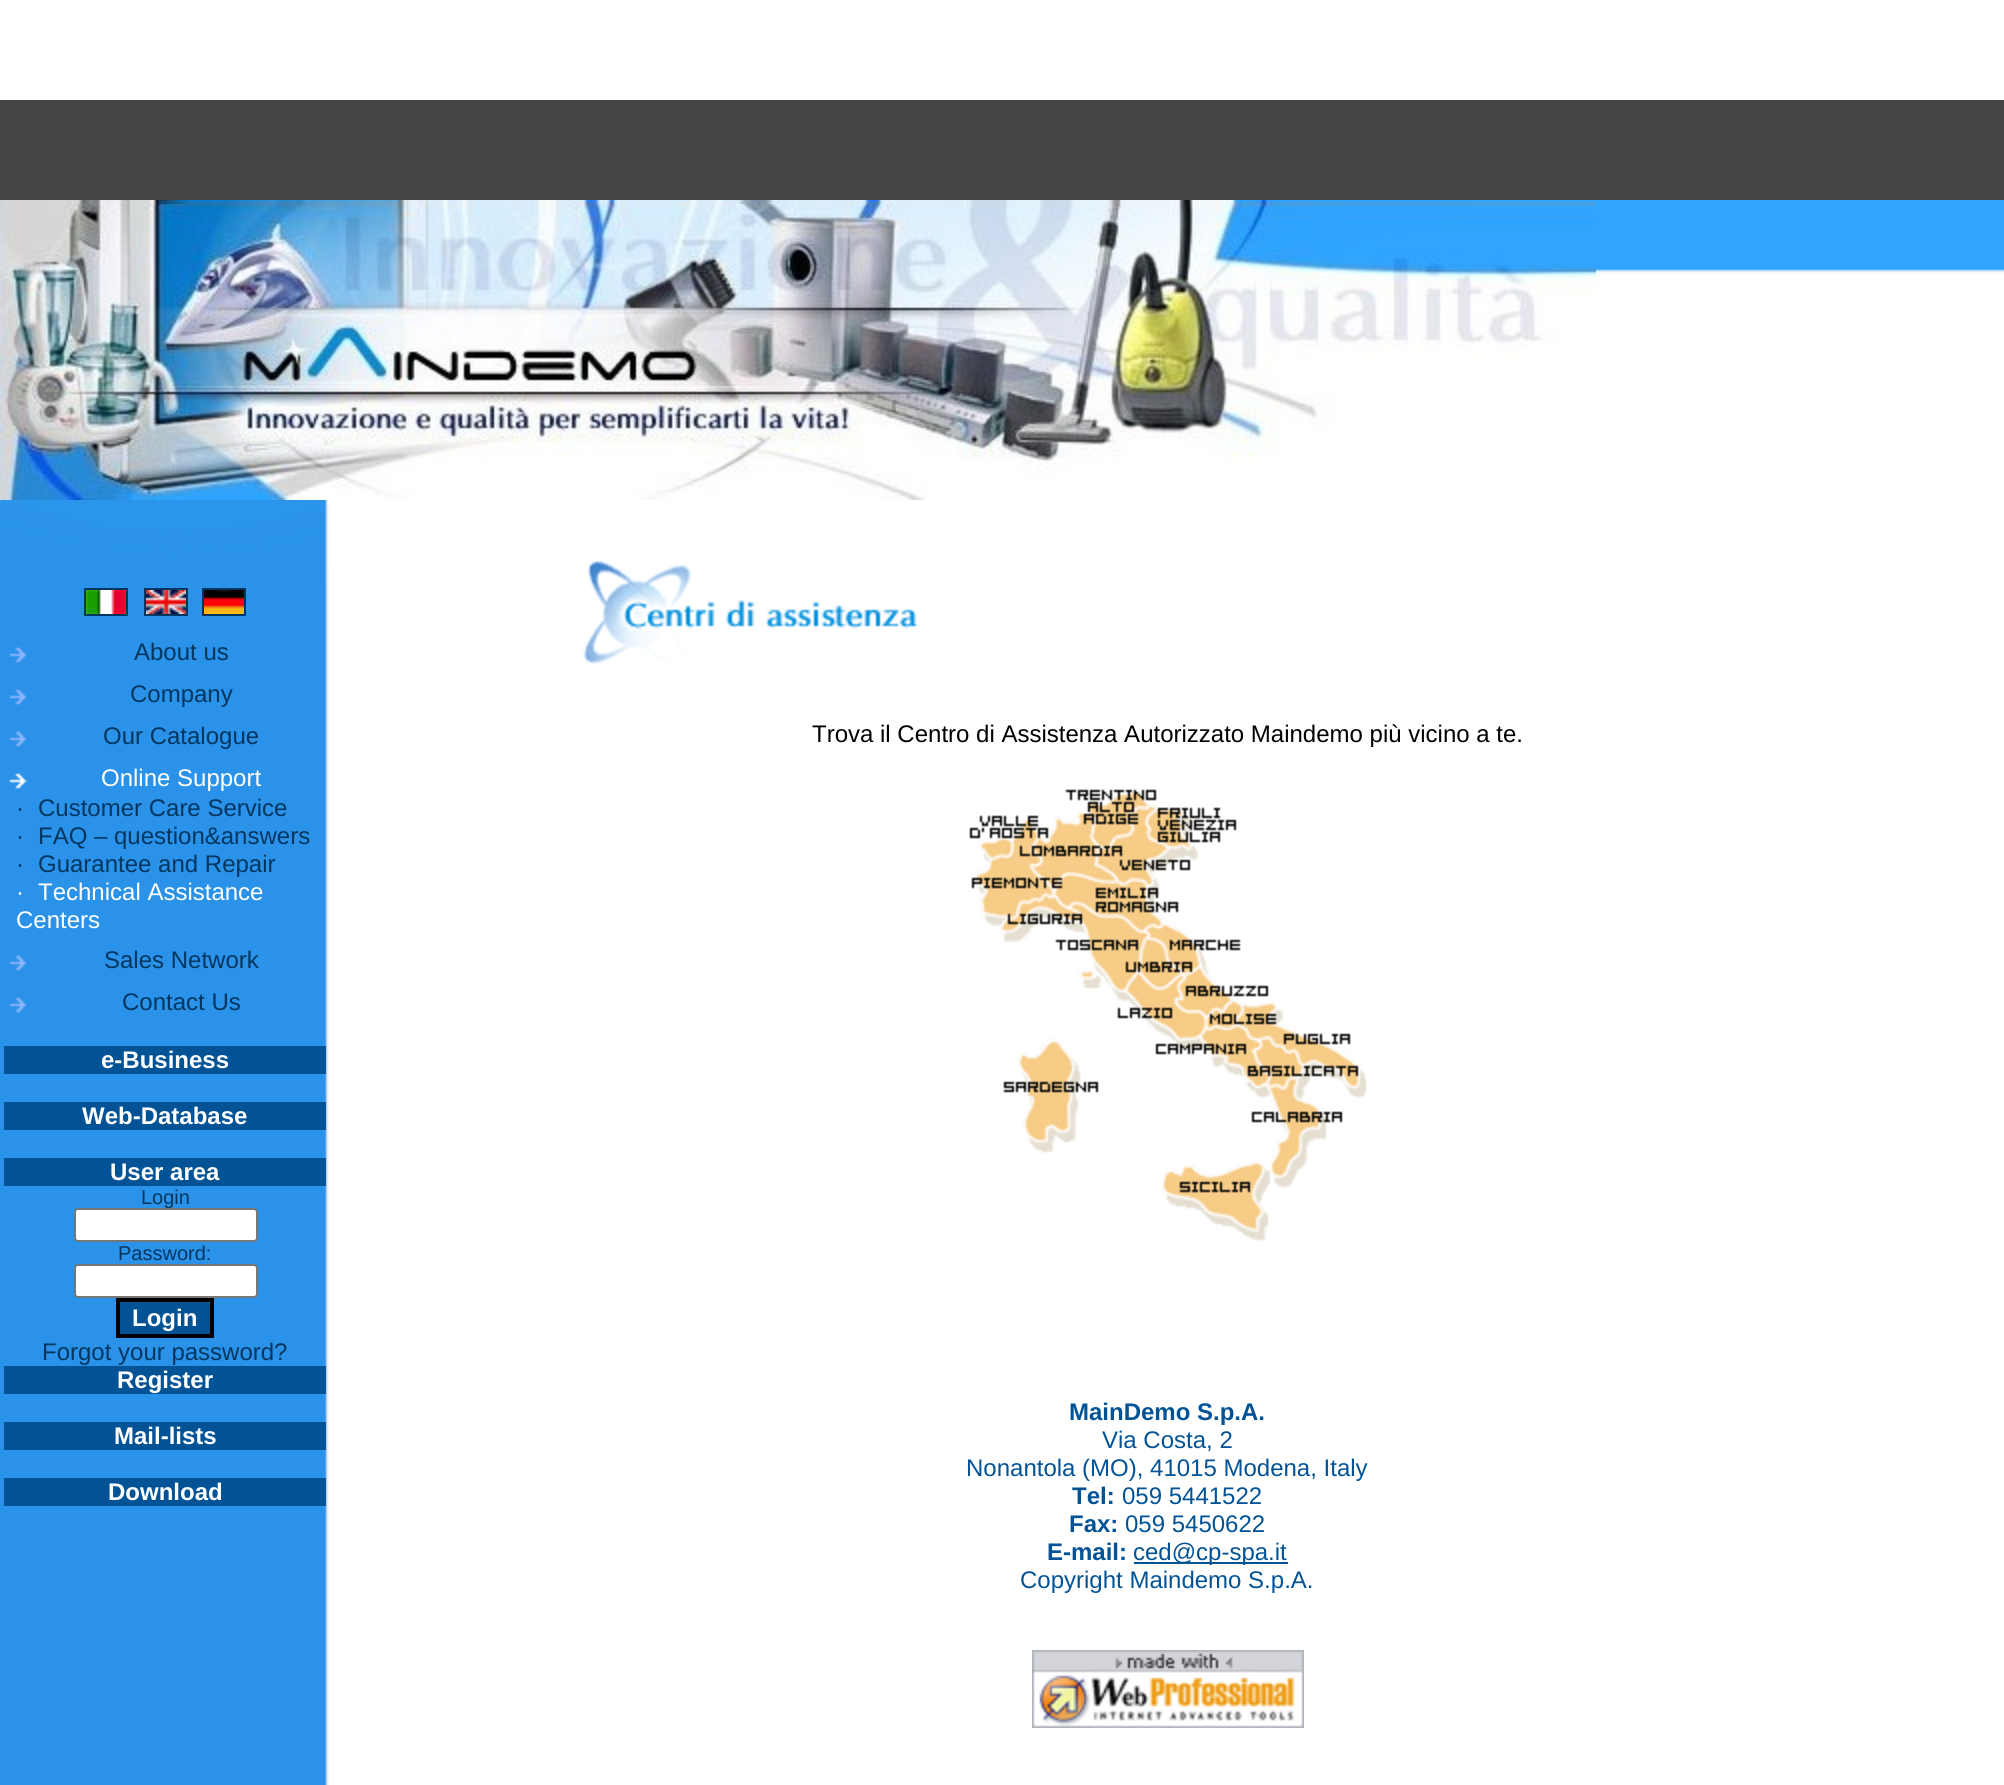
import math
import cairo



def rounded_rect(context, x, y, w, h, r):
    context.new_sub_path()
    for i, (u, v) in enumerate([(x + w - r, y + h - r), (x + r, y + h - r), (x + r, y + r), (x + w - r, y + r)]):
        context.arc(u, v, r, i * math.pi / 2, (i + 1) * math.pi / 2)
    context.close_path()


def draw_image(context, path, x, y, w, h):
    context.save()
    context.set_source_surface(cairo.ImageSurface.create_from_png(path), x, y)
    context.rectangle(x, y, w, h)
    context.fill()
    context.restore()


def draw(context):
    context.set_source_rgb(1, 1, 1)
    context.paint()
    draw_image(context, "images/1.png", 0, 500, 1083, 1285)
    context.set_source_rgb(68 / 255, 68 / 255, 68 / 255)
    context.rectangle(0, 100, 2004, 100)
    context.fill()
    draw_image(context, "images/2.png", 0, 200, 2004, 300)
    draw_image(context, "images/3.png", 0, 202, 1596, 298)
    context.rectangle(85, 589, 42, 26)
    context.set_source_rgb(1 / 255, 54 / 255, 97 / 255)
    context.stroke()
    context.rectangle(145, 589, 42, 26)
    context.stroke()
    context.rectangle(203, 589, 42, 26)
    context.stroke()
    draw_image(context, "images/4.png", 86, 590, 40, 24)
    draw_image(context, "images/5.png", 146, 590, 40, 24)
    draw_image(context, "images/6.png", 204, 590, 40, 24)
    draw_image(context, "images/7.png", 9, 647, 18, 16)
    draw_image(context, "images/7.png", 9, 689, 18, 16)
    draw_image(context, "images/7.png", 9, 731, 18, 16)
    draw_image(context, "images/8.png", 9, 773, 18, 16)
    draw_image(context, "images/7.png", 9, 955, 18, 16)
    draw_image(context, "images/7.png", 9, 997, 18, 16)
    context.set_source_rgb(2 / 255, 83 / 255, 150 / 255)
    context.rectangle(4, 1046, 322, 28)
    context.fill()
    context.rectangle(4, 1102, 322, 28)
    context.fill()
    context.rectangle(4, 1158, 322, 28)
    context.fill()
    context.set_source_rgb(1, 1, 1)
    rounded_rect(context, 75, 1265, 182, 32, 3)
    context.fill_preserve()
    context.set_source_rgb(118 / 255, 118 / 255, 118 / 255)
    context.stroke()
    context.set_source_rgb(2 / 255, 83 / 255, 150 / 255)
    context.rectangle(118, 1300, 94, 36)
    context.fill_preserve()
    context.set_source_rgb(0, 0, 0)
    context.set_line_width(4)
    context.stroke()
    context.set_source_rgb(2 / 255, 83 / 255, 150 / 255)
    context.rectangle(4, 1366, 322, 28)
    context.fill()
    context.rectangle(4, 1422, 322, 28)
    context.fill()
    context.rectangle(4, 1478, 322, 28)
    context.fill()
    draw_image(context, "images/9.png", 583, 559, 335, 106)
    draw_image(context, "images/10.png", 969, 789, 398, 452)
    context.rectangle(1134, 1562, 154, 2)
    context.fill()
    draw_image(context, "images/11.png", 1032, 1650, 272, 78)
    context.select_font_face("Liberation Sans")
    context.set_font_size(24)
    context.set_source_rgb(1 / 255, 54 / 255, 97 / 255)
    context.move_to(134, 660)
    context.show_text("About us")
    context.move_to(130, 702)
    context.show_text("Company")
    context.move_to(103, 744)
    context.show_text("Our Catalogue")
    context.set_source_rgb(1, 1, 1)
    context.move_to(101, 786)
    context.show_text("Online Support")
    context.set_source_rgb(1 / 255, 54 / 255, 97 / 255)
    context.move_to(16, 816)
    context.show_text("·")
    context.move_to(38, 816)
    context.show_text("Customer Care Service")
    context.move_to(16, 844)
    context.show_text("·")
    context.move_to(38, 844)
    context.show_text("FAQ – question&answers")
    context.move_to(16, 872)
    context.show_text("·")
    context.move_to(38, 872)
    context.show_text("Guarantee and Repair")
    context.set_source_rgb(1, 1, 1)
    context.move_to(16, 900)
    context.show_text("·")
    context.move_to(38, 900)
    context.show_text("Technical Assistance")
    context.move_to(16, 928)
    context.show_text("Centers")
    context.set_source_rgb(1 / 255, 54 / 255, 97 / 255)
    context.move_to(104, 968)
    context.show_text("Sales Network")
    context.move_to(122, 1010)
    context.show_text("Contact Us")
    context.select_font_face("Liberation Sans", cairo.FontSlant.NORMAL, cairo.FontWeight.BOLD)
    context.set_source_rgb(1, 1, 1)
    context.move_to(101, 1068)
    context.show_text("e-Business")
    context.move_to(82, 1124)
    context.show_text("Web-Database")
    context.move_to(110, 1180)
    context.show_text("User area")
    context.select_font_face("Liberation Sans")
    context.set_font_size(20)
    context.set_source_rgb(1 / 255, 54 / 255, 97 / 255)
    context.move_to(141, 1204)
    context.show_text("Login")
    context.set_source_rgb(1, 1, 1)
    rounded_rect(context, 75, 1209, 182, 32, 3)
    context.fill_preserve()
    context.set_source_rgb(118 / 255, 118 / 255, 118 / 255)
    context.set_line_width(2)
    context.stroke()
    context.set_source_rgb(1 / 255, 54 / 255, 97 / 255)
    context.move_to(118, 1260)
    context.show_text("Password:")
    context.select_font_face("Liberation Sans", cairo.FontSlant.NORMAL, cairo.FontWeight.BOLD)
    context.set_font_size(24)
    context.set_source_rgb(1, 1, 1)
    context.move_to(132, 1326)
    context.show_text("Login")
    context.select_font_face("Liberation Sans")
    context.set_source_rgb(1 / 255, 54 / 255, 97 / 255)
    context.move_to(42, 1360)
    context.show_text("Forgot your password?")
    context.select_font_face("Liberation Sans", cairo.FontSlant.NORMAL, cairo.FontWeight.BOLD)
    context.set_source_rgb(1, 1, 1)
    context.move_to(117, 1388)
    context.show_text("Register")
    context.move_to(114, 1444)
    context.show_text("Mail-lists")
    context.move_to(108, 1500)
    context.show_text("Download")
    context.select_font_face("Liberation Sans")
    context.set_source_rgb(0, 0, 0)
    context.move_to(812, 742)
    context.show_text("Trova il Centro di Assistenza Autorizzato Maindemo più vicino a te.")
    context.select_font_face("Liberation Sans", cairo.FontSlant.NORMAL, cairo.FontWeight.BOLD)
    context.set_source_rgb(2 / 255, 83 / 255, 150 / 255)
    context.move_to(1069, 1420)
    context.show_text("MainDemo S.p.A.")
    context.select_font_face("Liberation Sans")
    context.move_to(1102, 1448)
    context.show_text("Via Costa, 2")
    context.move_to(966, 1476)
    context.show_text("Nonantola (MO), 41015 Modena, Italy")
    context.select_font_face("Liberation Sans", cairo.FontSlant.NORMAL, cairo.FontWeight.BOLD)
    context.move_to(1072, 1504)
    context.show_text("Tel:")
    context.select_font_face("Liberation Sans")
    context.move_to(1122, 1504)
    context.show_text("059 5441522")
    context.select_font_face("Liberation Sans", cairo.FontSlant.NORMAL, cairo.FontWeight.BOLD)
    context.move_to(1069, 1532)
    context.show_text("Fax:")
    context.select_font_face("Liberation Sans")
    context.move_to(1125, 1532)
    context.show_text("059 5450622")
    context.select_font_face("Liberation Sans", cairo.FontSlant.NORMAL, cairo.FontWeight.BOLD)
    context.move_to(1047, 1560)
    context.show_text("E-mail:")
    context.select_font_face("Liberation Sans")
    context.move_to(1133, 1560)
    context.show_text("ced@cp-spa.it")
    context.move_to(1020, 1588)
    context.show_text("Copyright Maindemo S.p.A.")


surface = cairo.ImageSurface(cairo.Format.RGB24, 2004, 1785)
context = cairo.Context(surface)
options = cairo.FontOptions()
options.set_hint_metrics(cairo.HintMetrics.OFF)
options.set_hint_style(cairo.HintStyle.NONE)
context.set_font_options(options)
context.set_miter_limit(4)
draw(context)
surface.write_to_png("out.png")
